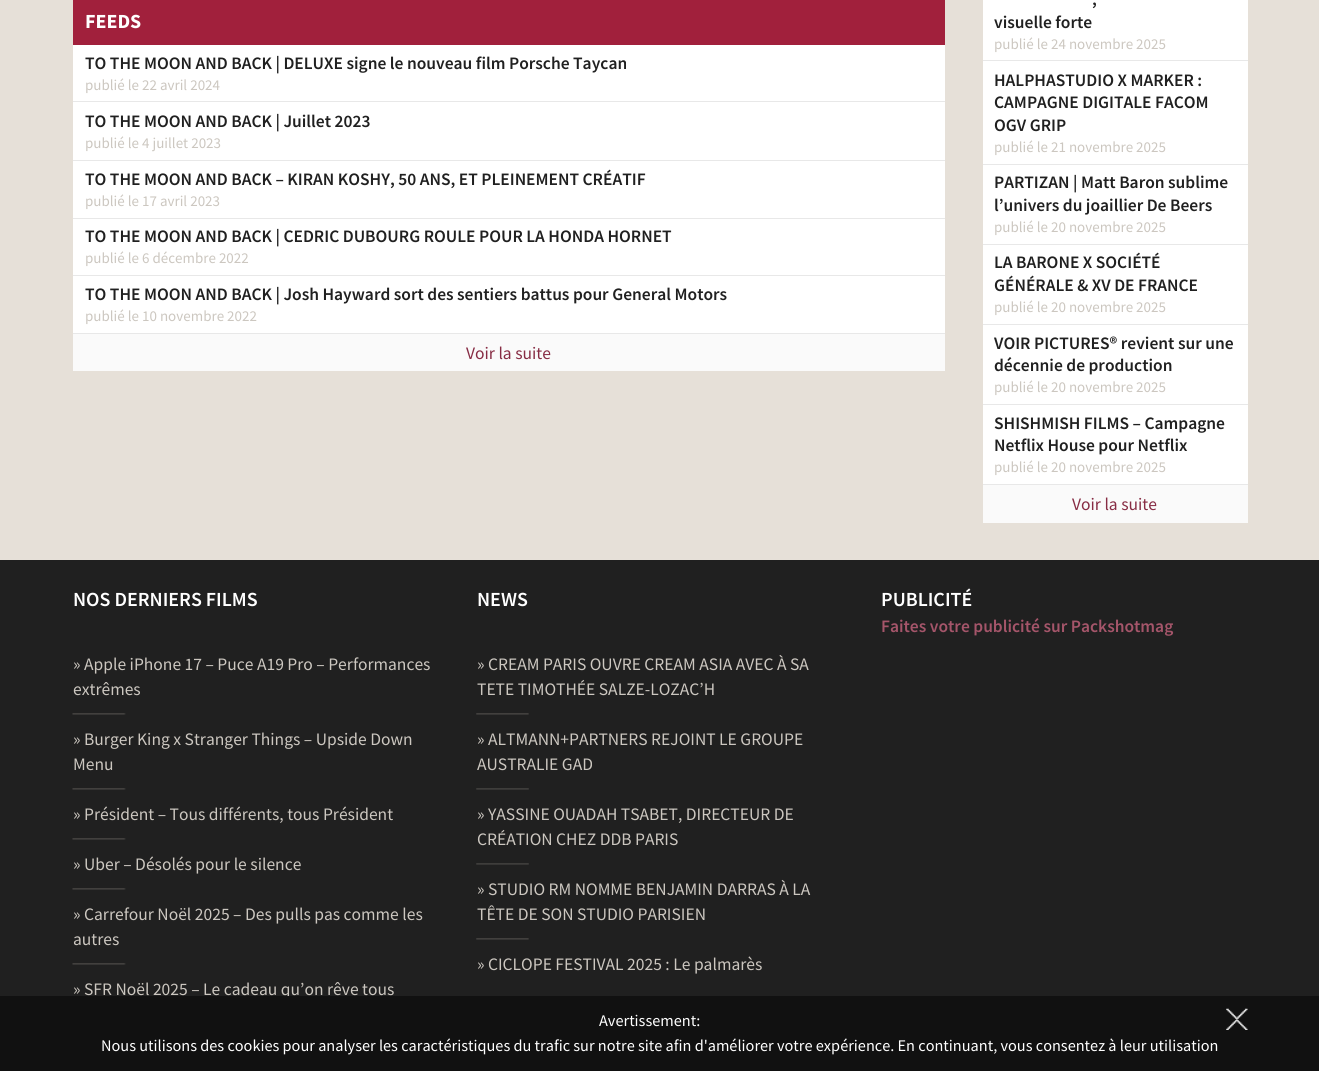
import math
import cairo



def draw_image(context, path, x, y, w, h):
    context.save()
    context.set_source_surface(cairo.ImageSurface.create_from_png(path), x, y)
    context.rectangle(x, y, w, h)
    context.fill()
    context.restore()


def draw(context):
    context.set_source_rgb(230 / 255, 224 / 255, 216 / 255)
    context.paint()
    context.set_source_rgb(1, 1, 1)
    context.rectangle(73, 45, 872, 288)
    context.fill()
    context.set_source_rgb(161 / 255, 32 / 255, 60 / 255)
    context.rectangle(73, 0, 872, 45)
    context.fill()
    context.set_source_rgb(232 / 255, 232 / 255, 232 / 255)
    context.rectangle(73, 101, 872, 1)
    context.fill()
    context.rectangle(73, 160, 872, 1)
    context.fill()
    context.rectangle(73, 218, 872, 1)
    context.fill()
    context.rectangle(73, 275, 872, 1)
    context.fill()
    context.rectangle(73, 333, 872, 1)
    context.fill()
    context.set_source_rgb(250 / 255, 250 / 255, 250 / 255)
    context.rectangle(73, 334, 872, 37)
    context.fill()
    context.set_source_rgb(1, 1, 1)
    context.rectangle(983, 0, 265, 484)
    context.fill()
    context.set_source_rgb(232 / 255, 232 / 255, 232 / 255)
    context.rectangle(983, 60, 265, 1)
    context.fill()
    context.rectangle(983, 164, 265, 1)
    context.fill()
    context.rectangle(983, 244, 265, 1)
    context.fill()
    context.rectangle(983, 324, 265, 1)
    context.fill()
    context.rectangle(983, 404, 265, 1)
    context.fill()
    context.rectangle(983, 484, 265, 1)
    context.fill()
    context.set_source_rgb(250 / 255, 250 / 255, 250 / 255)
    context.rectangle(983, 485, 265, 38)
    context.fill()
    context.set_source_rgb(32 / 255, 32 / 255, 32 / 255)
    context.rectangle(0, 560, 1319, 436)
    context.fill()
    draw_image(context, "images/1.png", 72, 713, 54, 2)
    draw_image(context, "images/1.png", 72, 788, 54, 2)
    draw_image(context, "images/1.png", 72, 838, 54, 2)
    draw_image(context, "images/1.png", 72, 888, 54, 2)
    draw_image(context, "images/1.png", 72, 963, 54, 2)
    draw_image(context, "images/2.png", 476, 713, 53, 2)
    draw_image(context, "images/3.png", 476, 788, 53, 2)
    draw_image(context, "images/3.png", 476, 863, 53, 2)
    draw_image(context, "images/2.png", 476, 938, 53, 2)
    context.select_font_face("Source Sans Pro", cairo.FontSlant.NORMAL, cairo.FontWeight.BOLD)
    context.set_font_size(20)
    context.set_source_rgb(1, 1, 1)
    context.move_to(85, 28)
    context.show_text("FEEDS")
    context.select_font_face("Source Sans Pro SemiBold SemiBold")
    context.set_font_size(17.5)
    context.set_source_rgb(32 / 255, 32 / 255, 32 / 255)
    context.move_to(85, 69)
    context.show_text("TO THE MOON AND BACK | DELUXE signe le nouveau film Porsche Taycan")
    context.select_font_face("Source Sans Pro")
    context.set_font_size(15)
    context.set_source_rgb(204 / 255, 199 / 255, 192 / 255)
    context.move_to(85, 90)
    context.show_text("publié le 22 avril 2024")
    context.select_font_face("Source Sans Pro SemiBold SemiBold")
    context.set_font_size(17.5)
    context.set_source_rgb(32 / 255, 32 / 255, 32 / 255)
    context.move_to(85, 127)
    context.show_text("TO THE MOON AND BACK | Juillet 2023")
    context.select_font_face("Source Sans Pro")
    context.set_font_size(15)
    context.set_source_rgb(204 / 255, 199 / 255, 192 / 255)
    context.move_to(85, 148)
    context.show_text("publié le 4 juillet 2023")
    context.select_font_face("Source Sans Pro SemiBold SemiBold")
    context.set_font_size(17.5)
    context.set_source_rgb(32 / 255, 32 / 255, 32 / 255)
    context.move_to(85, 185)
    context.show_text("TO THE MOON AND BACK – KIRAN KOSHY, 50 ANS, ET PLEINEMENT CRÉATIF")
    context.select_font_face("Source Sans Pro")
    context.set_font_size(15)
    context.set_source_rgb(204 / 255, 199 / 255, 192 / 255)
    context.move_to(85, 206)
    context.show_text("publié le 17 avril 2023")
    context.select_font_face("Source Sans Pro SemiBold SemiBold")
    context.set_font_size(17.5)
    context.set_source_rgb(32 / 255, 32 / 255, 32 / 255)
    context.move_to(85, 242)
    context.show_text("TO THE MOON AND BACK | CEDRIC DUBOURG ROULE POUR LA HONDA HORNET")
    context.select_font_face("Source Sans Pro")
    context.set_font_size(15)
    context.set_source_rgb(204 / 255, 199 / 255, 192 / 255)
    context.move_to(85, 263)
    context.show_text("publié le 6 décembre 2022")
    context.select_font_face("Source Sans Pro SemiBold SemiBold")
    context.set_font_size(17.5)
    context.set_source_rgb(32 / 255, 32 / 255, 32 / 255)
    context.move_to(85, 300)
    context.show_text("TO THE MOON AND BACK | Josh Hayward sort des sentiers battus pour General Motors")
    context.select_font_face("Source Sans Pro")
    context.set_font_size(15)
    context.set_source_rgb(204 / 255, 199 / 255, 192 / 255)
    context.move_to(85, 321)
    context.show_text("publié le 10 novembre 2022")
    context.set_font_size(17.5)
    context.set_source_rgb(135 / 255, 44 / 255, 68 / 255)
    context.move_to(466, 359)
    context.show_text("Voir la suite")
    context.select_font_face("Source Sans Pro SemiBold SemiBold")
    context.set_source_rgb(32 / 255, 32 / 255, 32 / 255)
    context.move_to(1092, 5)
    context.show_text(",")
    context.move_to(994, 28)
    context.show_text("visuelle forte")
    context.select_font_face("Source Sans Pro")
    context.set_font_size(15)
    context.set_source_rgb(204 / 255, 199 / 255, 192 / 255)
    context.move_to(994, 49)
    context.show_text("publié le 24 novembre 2025")
    context.select_font_face("Source Sans Pro SemiBold SemiBold")
    context.set_font_size(17.5)
    context.set_source_rgb(32 / 255, 32 / 255, 32 / 255)
    context.move_to(994, 86)
    context.show_text("HALPHASTUDIO X MARKER :")
    context.move_to(994, 108)
    context.show_text("CAMPAGNE DIGITALE FACOM")
    context.move_to(994, 131)
    context.show_text("OGV GRIP")
    context.select_font_face("Source Sans Pro")
    context.set_font_size(15)
    context.set_source_rgb(204 / 255, 199 / 255, 192 / 255)
    context.move_to(994, 152)
    context.show_text("publié le 21 novembre 2025")
    context.select_font_face("Source Sans Pro SemiBold SemiBold")
    context.set_font_size(17.5)
    context.set_source_rgb(32 / 255, 32 / 255, 32 / 255)
    context.move_to(994, 188)
    context.show_text("PARTIZAN | Matt Baron sublime")
    context.move_to(994, 211)
    context.show_text("l’univers du joaillier De Beers")
    context.select_font_face("Source Sans Pro")
    context.set_font_size(15)
    context.set_source_rgb(204 / 255, 199 / 255, 192 / 255)
    context.move_to(994, 232)
    context.show_text("publié le 20 novembre 2025")
    context.select_font_face("Source Sans Pro SemiBold SemiBold")
    context.set_font_size(17.5)
    context.set_source_rgb(32 / 255, 32 / 255, 32 / 255)
    context.move_to(994, 268)
    context.show_text("LA BARONE X SOCIÉTÉ")
    context.move_to(994, 291)
    context.show_text("GÉNÉRALE & XV DE FRANCE")
    context.select_font_face("Source Sans Pro")
    context.set_font_size(15)
    context.set_source_rgb(204 / 255, 199 / 255, 192 / 255)
    context.move_to(994, 312)
    context.show_text("publié le 20 novembre 2025")
    context.select_font_face("Source Sans Pro SemiBold SemiBold")
    context.set_font_size(17.5)
    context.set_source_rgb(32 / 255, 32 / 255, 32 / 255)
    context.move_to(994, 349)
    context.show_text("VOIR PICTURES® revient sur une")
    context.move_to(994, 371)
    context.show_text("décennie de production")
    context.select_font_face("Source Sans Pro")
    context.set_font_size(15)
    context.set_source_rgb(204 / 255, 199 / 255, 192 / 255)
    context.move_to(994, 392)
    context.show_text("publié le 20 novembre 2025")
    context.select_font_face("Source Sans Pro SemiBold SemiBold")
    context.set_font_size(17.5)
    context.set_source_rgb(32 / 255, 32 / 255, 32 / 255)
    context.move_to(994, 429)
    context.show_text("SHISHMISH FILMS – Campagne")
    context.move_to(994, 451)
    context.show_text("Netflix House pour Netflix")
    context.select_font_face("Source Sans Pro")
    context.set_font_size(15)
    context.set_source_rgb(204 / 255, 199 / 255, 192 / 255)
    context.move_to(994, 472)
    context.show_text("publié le 20 novembre 2025")
    context.set_font_size(17.5)
    context.set_source_rgb(135 / 255, 44 / 255, 68 / 255)
    context.move_to(1072, 510)
    context.show_text("Voir la suite")
    context.select_font_face("Source Sans Pro SemiBold SemiBold")
    context.set_font_size(20)
    context.set_source_rgb(1, 1, 1)
    context.move_to(73, 606)
    context.show_text("NOS DERNIERS FILMS")
    context.select_font_face("Source Sans Pro")
    context.set_font_size(17.5)
    context.set_source_rgb(204 / 255, 199 / 255, 192 / 255)
    context.move_to(73, 670)
    context.show_text("» Apple iPhone 17 – Puce A19 Pro – Performances")
    context.move_to(73, 695)
    context.show_text("extrêmes")
    context.move_to(73, 745)
    context.show_text("» Burger King x Stranger Things – Upside Down")
    context.move_to(73, 770)
    context.show_text("Menu")
    context.move_to(73, 820)
    context.show_text("» Président – Tous différents, tous Président")
    context.move_to(73, 870)
    context.show_text("» Uber – Désolés pour le silence")
    context.move_to(73, 920)
    context.show_text("» Carrefour Noël 2025 – Des pulls pas comme les")
    context.move_to(73, 945)
    context.show_text("autres")
    context.move_to(73, 995)
    context.show_text("» SFR Noël 2025 – Le cadeau qu’on rêve tous")
    context.select_font_face("Source Sans Pro SemiBold SemiBold")
    context.set_font_size(20)
    context.set_source_rgb(1, 1, 1)
    context.move_to(477, 606)
    context.show_text("NEWS")
    context.select_font_face("Source Sans Pro")
    context.set_font_size(17.5)
    context.set_source_rgb(204 / 255, 199 / 255, 192 / 255)
    context.move_to(477, 670)
    context.show_text("» CREAM PARIS OUVRE CREAM ASIA AVEC À SA")
    context.move_to(477, 695)
    context.show_text("TETE TIMOTHÉE SALZE-LOZAC’H")
    context.move_to(477, 745)
    context.show_text("» ALTMANN+PARTNERS REJOINT LE GROUPE")
    context.move_to(477, 770)
    context.show_text("AUSTRALIE GAD")
    context.move_to(477, 820)
    context.show_text("» YASSINE OUADAH TSABET, DIRECTEUR DE")
    context.move_to(477, 845)
    context.show_text("CRÉATION CHEZ DDB PARIS")
    context.move_to(477, 895)
    context.show_text("» STUDIO RM NOMME BENJAMIN DARRAS À LA")
    context.move_to(477, 920)
    context.show_text("TÊTE DE SON STUDIO PARISIEN")
    context.move_to(477, 970)
    context.show_text("» CICLOPE FESTIVAL 2025 : Le palmarès")
    context.select_font_face("Source Sans Pro SemiBold SemiBold")
    context.set_font_size(20)
    context.set_source_rgb(1, 1, 1)
    context.move_to(881, 606)
    context.show_text("PUBLICITÉ")
    context.set_font_size(17.5)
    context.set_source_rgb(165 / 255, 85 / 255, 106 / 255)
    context.move_to(881, 632)
    context.show_text("Faites votre publicité sur Packshotmag")
    context.set_source_rgb(17 / 255, 17 / 255, 17 / 255)
    context.rectangle(0, 996, 1319, 75)
    context.fill()
    context.select_font_face("Source Sans Pro")
    context.set_font_size(16.25)
    context.set_source_rgb(1, 1, 1)
    context.move_to(599, 1026)
    context.show_text("Avertissement:")
    draw_image(context, "images/4.png", 1226, 1008, 22, 22)
    context.move_to(101, 1051)
    context.show_text("Nous utilisons des cookies pour analyser les caractéristiques du trafic sur notre site afin d'améliorer votre expérience. En continuant, vous consentez à leur utilisation")


surface = cairo.ImageSurface(cairo.Format.RGB24, 1319, 1071)
context = cairo.Context(surface)
options = cairo.FontOptions()
options.set_hint_metrics(cairo.HintMetrics.OFF)
options.set_hint_style(cairo.HintStyle.NONE)
context.set_font_options(options)
context.set_miter_limit(4)
draw(context)
surface.write_to_png("out.png")
